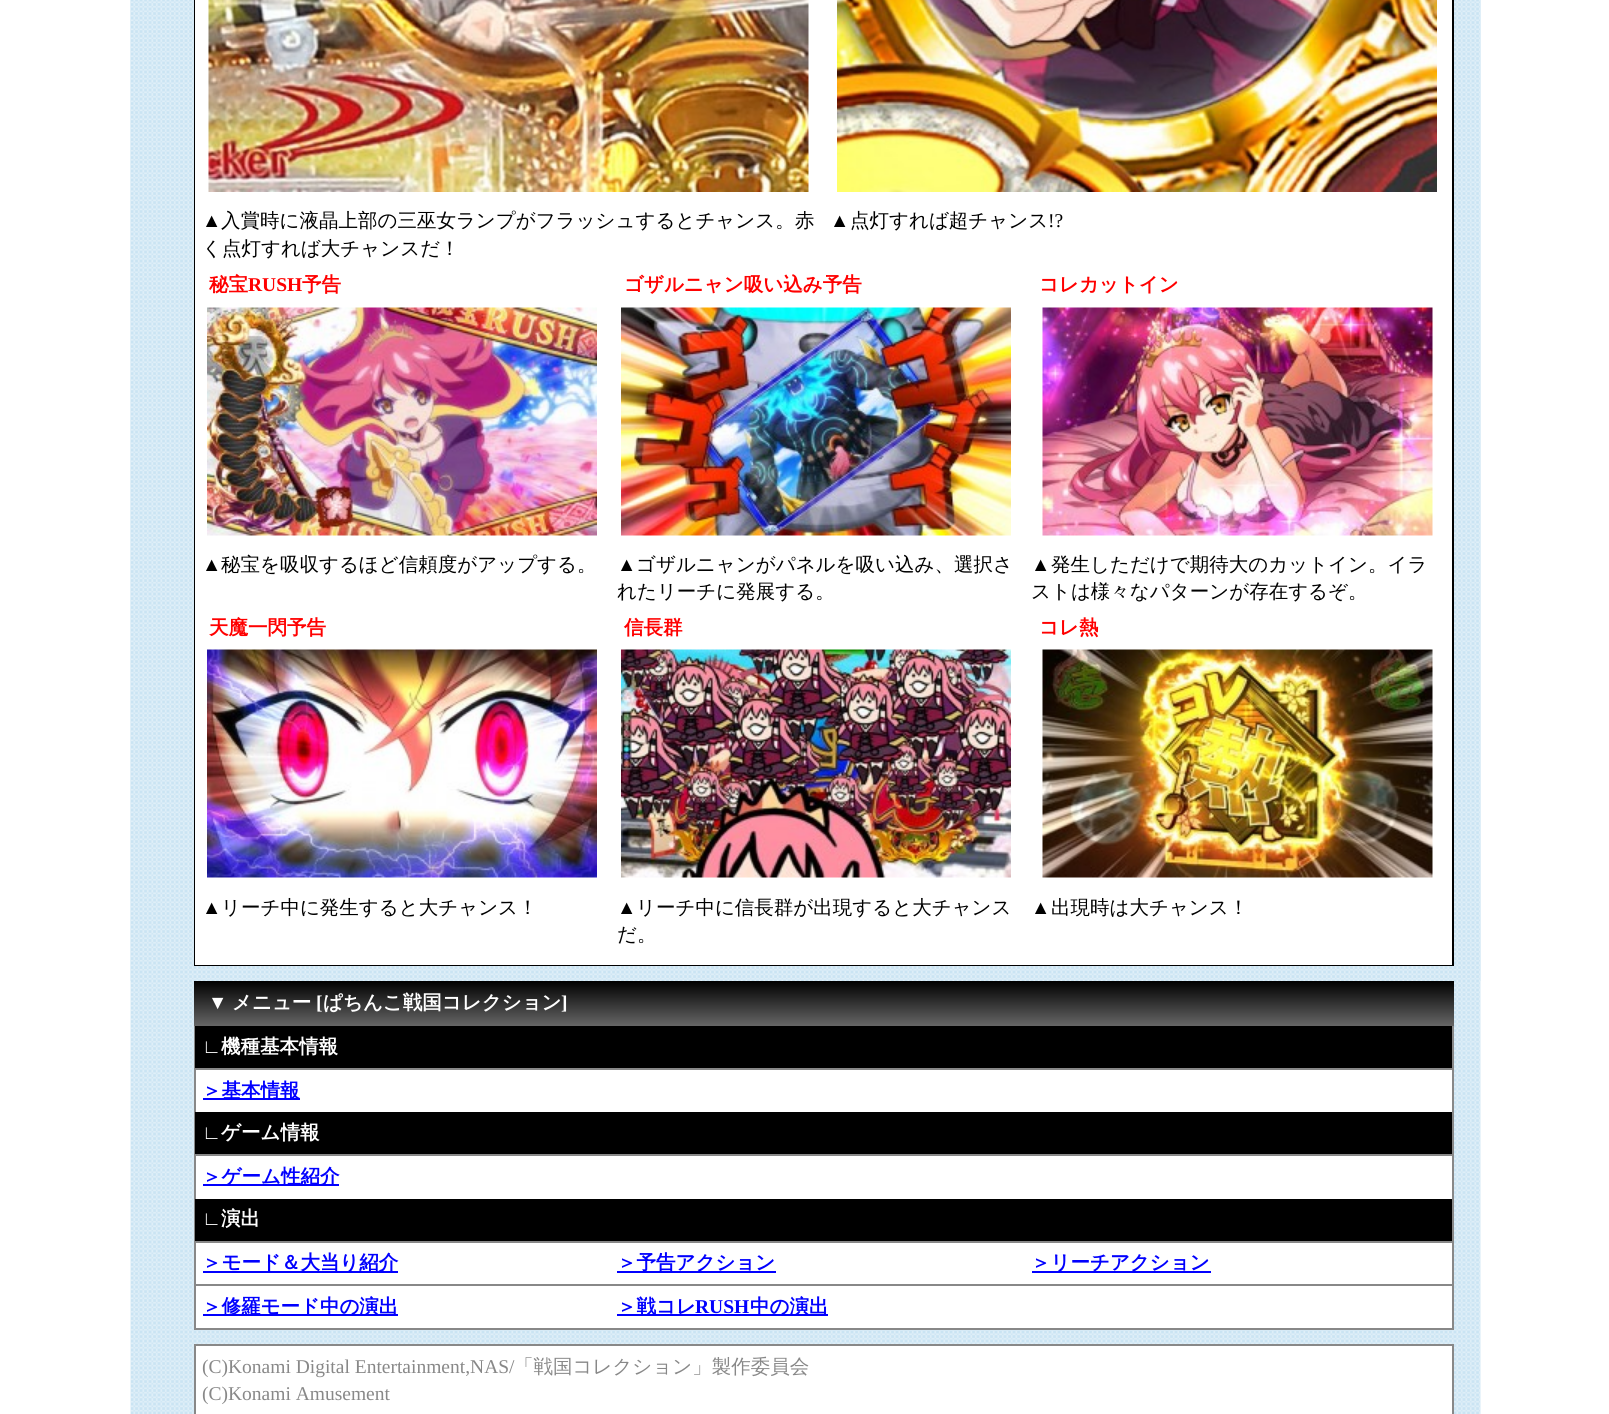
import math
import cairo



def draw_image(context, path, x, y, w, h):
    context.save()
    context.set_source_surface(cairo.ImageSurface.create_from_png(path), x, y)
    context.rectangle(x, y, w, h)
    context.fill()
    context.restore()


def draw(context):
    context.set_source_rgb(1, 1, 1)
    context.paint()
    draw_image(context, "images/1.png", 130, 0, 1351, 1414)
    draw_image(context, "images/2.png", 130, 0, 1351, 981)
    context.set_source_rgb(0, 0, 0)
    context.rectangle(194, 0, 1260, 966)
    context.fill()
    context.set_source_rgb(1, 1, 1)
    context.rectangle(195, 0, 1257, 965)
    context.fill()
    draw_image(context, "images/3.png", 208, 0, 601, 192)
    draw_image(context, "images/4.png", 837, 0, 600, 192)
    draw_image(context, "images/5.png", 207, 307, 390, 229)
    draw_image(context, "images/6.png", 621, 307, 390, 229)
    draw_image(context, "images/7.png", 1042, 307, 391, 229)
    draw_image(context, "images/8.png", 207, 649, 390, 229)
    draw_image(context, "images/9.png", 621, 649, 390, 229)
    draw_image(context, "images/10.png", 1042, 649, 391, 229)
    context.rectangle(196, 1070, 1256, 258)
    context.fill()
    gradient = cairo.LinearGradient(824, 981, 824, 1026)
    gradient.add_color_stop_rgba(0, 0, 0, 0, 1)
    gradient.add_color_stop_rgba(1, 102 / 255, 102 / 255, 102 / 255, 1)
    context.set_source(gradient)
    context.rectangle(194, 981, 1260, 45)
    context.fill()
    context.set_source_rgb(136 / 255, 136 / 255, 136 / 255)
    context.rectangle(1452, 1026, 2, 303)
    context.fill()
    context.rectangle(194, 1328, 1260, 2)
    context.fill()
    context.rectangle(194, 1026, 2, 303)
    context.fill()
    context.set_source_rgb(0, 0, 0)
    context.rectangle(195, 1026, 1257, 42)
    context.fill()
    context.set_source_rgb(136 / 255, 136 / 255, 136 / 255)
    context.rectangle(195, 1068, 1257, 2)
    context.fill()
    context.set_source_rgb(1 / 255, 0, 254 / 255)
    context.rectangle(203, 1098, 97, 2)
    context.fill()
    context.set_source_rgb(0, 0, 0)
    context.rectangle(195, 1112, 1257, 42)
    context.fill()
    context.set_source_rgb(136 / 255, 136 / 255, 136 / 255)
    context.rectangle(195, 1154, 1257, 2)
    context.fill()
    context.set_source_rgb(1 / 255, 0, 254 / 255)
    context.rectangle(203, 1184, 136, 2)
    context.fill()
    context.set_source_rgb(0, 0, 0)
    context.rectangle(195, 1199, 1257, 42)
    context.fill()
    context.set_source_rgb(136 / 255, 136 / 255, 136 / 255)
    context.rectangle(195, 1241, 1257, 2)
    context.fill()
    context.set_source_rgb(1 / 255, 0, 254 / 255)
    context.rectangle(203, 1271, 195, 2)
    context.fill()
    context.rectangle(617, 1271, 159, 2)
    context.fill()
    context.rectangle(1032, 1271, 179, 2)
    context.fill()
    context.set_source_rgb(136 / 255, 136 / 255, 136 / 255)
    context.rectangle(195, 1284, 1257, 2)
    context.fill()
    context.set_source_rgb(1 / 255, 0, 254 / 255)
    context.rectangle(203, 1314, 195, 2)
    context.fill()
    context.rectangle(617, 1314, 211, 2)
    context.fill()
    context.set_source_rgb(1, 1, 1)
    context.rectangle(195, 1345, 1258, 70)
    context.fill_preserve()
    context.set_source_rgb(136 / 255, 136 / 255, 136 / 255)
    context.stroke()
    context.select_font_face("Liberation Serif")
    context.set_font_size(19.5)
    context.set_source_rgb(0, 0, 0)
    context.move_to(202, 227)
    context.show_text("▲")
    context.select_font_face("WenQuanYi Zen Hei Medium")
    context.move_to(221, 227)
    context.show_text("入賞時に液晶上部の三巫女ランプがフラッシュするとチャンス。赤")
    context.move_to(202, 255)
    context.show_text("く点灯すれば大チャンスだ！")
    context.select_font_face("Liberation Serif")
    context.move_to(830, 227)
    context.show_text("▲")
    context.select_font_face("WenQuanYi Zen Hei Medium")
    context.move_to(850, 227)
    context.show_text("点灯すれば超チャンス")
    context.select_font_face("Liberation Serif")
    context.move_to(1048, 227)
    context.show_text("!?")
    context.select_font_face("WenQuanYi Zen Hei", cairo.FontSlant.NORMAL, cairo.FontWeight.BOLD)
    context.set_source_rgb(1, 0, 0)
    context.move_to(209, 291)
    context.show_text("秘宝")
    context.select_font_face("Liberation Serif", cairo.FontSlant.NORMAL, cairo.FontWeight.BOLD)
    context.move_to(248, 291)
    context.show_text("RUSH")
    context.select_font_face("WenQuanYi Zen Hei", cairo.FontSlant.NORMAL, cairo.FontWeight.BOLD)
    context.move_to(302, 291)
    context.show_text("予告")
    context.move_to(624, 291)
    context.show_text("ゴザルニャン吸い込み予告")
    context.move_to(1039, 291)
    context.show_text("コレカットイン")
    context.select_font_face("Liberation Serif")
    context.set_source_rgb(0, 0, 0)
    context.move_to(202, 571)
    context.show_text("▲")
    context.select_font_face("WenQuanYi Zen Hei Medium")
    context.move_to(221, 571)
    context.show_text("秘宝を吸収するほど信頼度がアップする。")
    context.select_font_face("Liberation Serif")
    context.move_to(617, 571)
    context.show_text("▲")
    context.select_font_face("WenQuanYi Zen Hei Medium")
    context.move_to(636, 571)
    context.show_text("ゴザルニャンがパネルを吸い込み、選択さ")
    context.move_to(617, 598)
    context.show_text("れたリーチに発展する。")
    context.select_font_face("Liberation Serif")
    context.move_to(1031, 571)
    context.show_text("▲")
    context.select_font_face("WenQuanYi Zen Hei Medium")
    context.move_to(1051, 571)
    context.show_text("発生しただけで期待大のカットイン。イラ")
    context.move_to(1031, 598)
    context.show_text("ストは様々なパターンが存在するぞ。")
    context.select_font_face("WenQuanYi Zen Hei", cairo.FontSlant.NORMAL, cairo.FontWeight.BOLD)
    context.set_source_rgb(1, 0, 0)
    context.move_to(209, 634)
    context.show_text("天魔一閃予告")
    context.move_to(624, 634)
    context.show_text("信長群")
    context.move_to(1039, 634)
    context.show_text("コレ熱")
    context.select_font_face("Liberation Serif")
    context.set_source_rgb(0, 0, 0)
    context.move_to(202, 914)
    context.show_text("▲")
    context.select_font_face("WenQuanYi Zen Hei Medium")
    context.move_to(221, 914)
    context.show_text("リーチ中に発生すると大チャンス！")
    context.select_font_face("Liberation Serif")
    context.move_to(617, 914)
    context.show_text("▲")
    context.select_font_face("WenQuanYi Zen Hei Medium")
    context.move_to(636, 914)
    context.show_text("リーチ中に信長群が出現すると大チャンス")
    context.move_to(617, 941)
    context.show_text("だ。")
    context.select_font_face("Liberation Serif")
    context.move_to(1031, 914)
    context.show_text("▲")
    context.select_font_face("WenQuanYi Zen Hei Medium")
    context.move_to(1051, 914)
    context.show_text("出現時は大チャンス！")
    context.select_font_face("Liberation Serif", cairo.FontSlant.NORMAL, cairo.FontWeight.BOLD)
    context.set_source_rgb(1, 1, 1)
    context.move_to(208, 1009)
    context.show_text("▼")
    context.select_font_face("WenQuanYi Zen Hei", cairo.FontSlant.NORMAL, cairo.FontWeight.BOLD)
    context.move_to(232, 1009)
    context.show_text("メニュー")
    context.select_font_face("Liberation Serif", cairo.FontSlant.NORMAL, cairo.FontWeight.BOLD)
    context.move_to(316, 1009)
    context.show_text("[")
    context.select_font_face("WenQuanYi Zen Hei", cairo.FontSlant.NORMAL, cairo.FontWeight.BOLD)
    context.move_to(323, 1009)
    context.show_text("ぱちんこ戦国コレクション")
    context.select_font_face("Liberation Serif", cairo.FontSlant.NORMAL, cairo.FontWeight.BOLD)
    context.move_to(561, 1009)
    context.show_text("]")
    context.move_to(202, 1053)
    context.show_text("∟")
    context.select_font_face("WenQuanYi Zen Hei", cairo.FontSlant.NORMAL, cairo.FontWeight.BOLD)
    context.move_to(221, 1053)
    context.show_text("機種基本情報")
    context.set_source_rgb(1 / 255, 0, 254 / 255)
    context.move_to(202, 1097)
    context.show_text("＞基本情報")
    context.select_font_face("Liberation Serif", cairo.FontSlant.NORMAL, cairo.FontWeight.BOLD)
    context.set_source_rgb(1, 1, 1)
    context.move_to(202, 1139)
    context.show_text("∟")
    context.select_font_face("WenQuanYi Zen Hei", cairo.FontSlant.NORMAL, cairo.FontWeight.BOLD)
    context.move_to(221, 1139)
    context.show_text("ゲーム情報")
    context.set_source_rgb(1 / 255, 0, 254 / 255)
    context.move_to(202, 1183)
    context.show_text("＞ゲーム性紹介")
    context.select_font_face("Liberation Serif", cairo.FontSlant.NORMAL, cairo.FontWeight.BOLD)
    context.set_source_rgb(1, 1, 1)
    context.move_to(202, 1225)
    context.show_text("∟")
    context.select_font_face("WenQuanYi Zen Hei", cairo.FontSlant.NORMAL, cairo.FontWeight.BOLD)
    context.move_to(221, 1225)
    context.show_text("演出")
    context.set_source_rgb(1 / 255, 0, 254 / 255)
    context.move_to(202, 1269)
    context.show_text("＞モード＆大当り紹介")
    context.move_to(617, 1269)
    context.show_text("＞予告アクション")
    context.move_to(1031, 1269)
    context.show_text("＞リーチアクション")
    context.move_to(202, 1313)
    context.show_text("＞修羅モード中の演出")
    context.move_to(617, 1313)
    context.show_text("＞戦コレ")
    context.select_font_face("Liberation Serif", cairo.FontSlant.NORMAL, cairo.FontWeight.BOLD)
    context.move_to(695, 1313)
    context.show_text("RUSH")
    context.select_font_face("WenQuanYi Zen Hei", cairo.FontSlant.NORMAL, cairo.FontWeight.BOLD)
    context.move_to(750, 1313)
    context.show_text("中の演出")
    context.select_font_face("Liberation Serif")
    context.set_source_rgb(136 / 255, 136 / 255, 136 / 255)
    context.move_to(202, 1373)
    context.show_text("(C)Konami Digital Entertainment,NAS/")
    context.select_font_face("WenQuanYi Zen Hei Medium")
    context.move_to(514, 1373)
    context.show_text("「戦国コレクション」製作委員会")
    context.select_font_face("Liberation Serif")
    context.move_to(202, 1400)
    context.show_text("(C)Konami Amusement")


surface = cairo.ImageSurface(cairo.Format.RGB24, 1609, 1414)
context = cairo.Context(surface)
options = cairo.FontOptions()
options.set_hint_metrics(cairo.HintMetrics.OFF)
options.set_hint_style(cairo.HintStyle.NONE)
context.set_font_options(options)
context.set_miter_limit(4)
draw(context)
surface.write_to_png("out.png")
